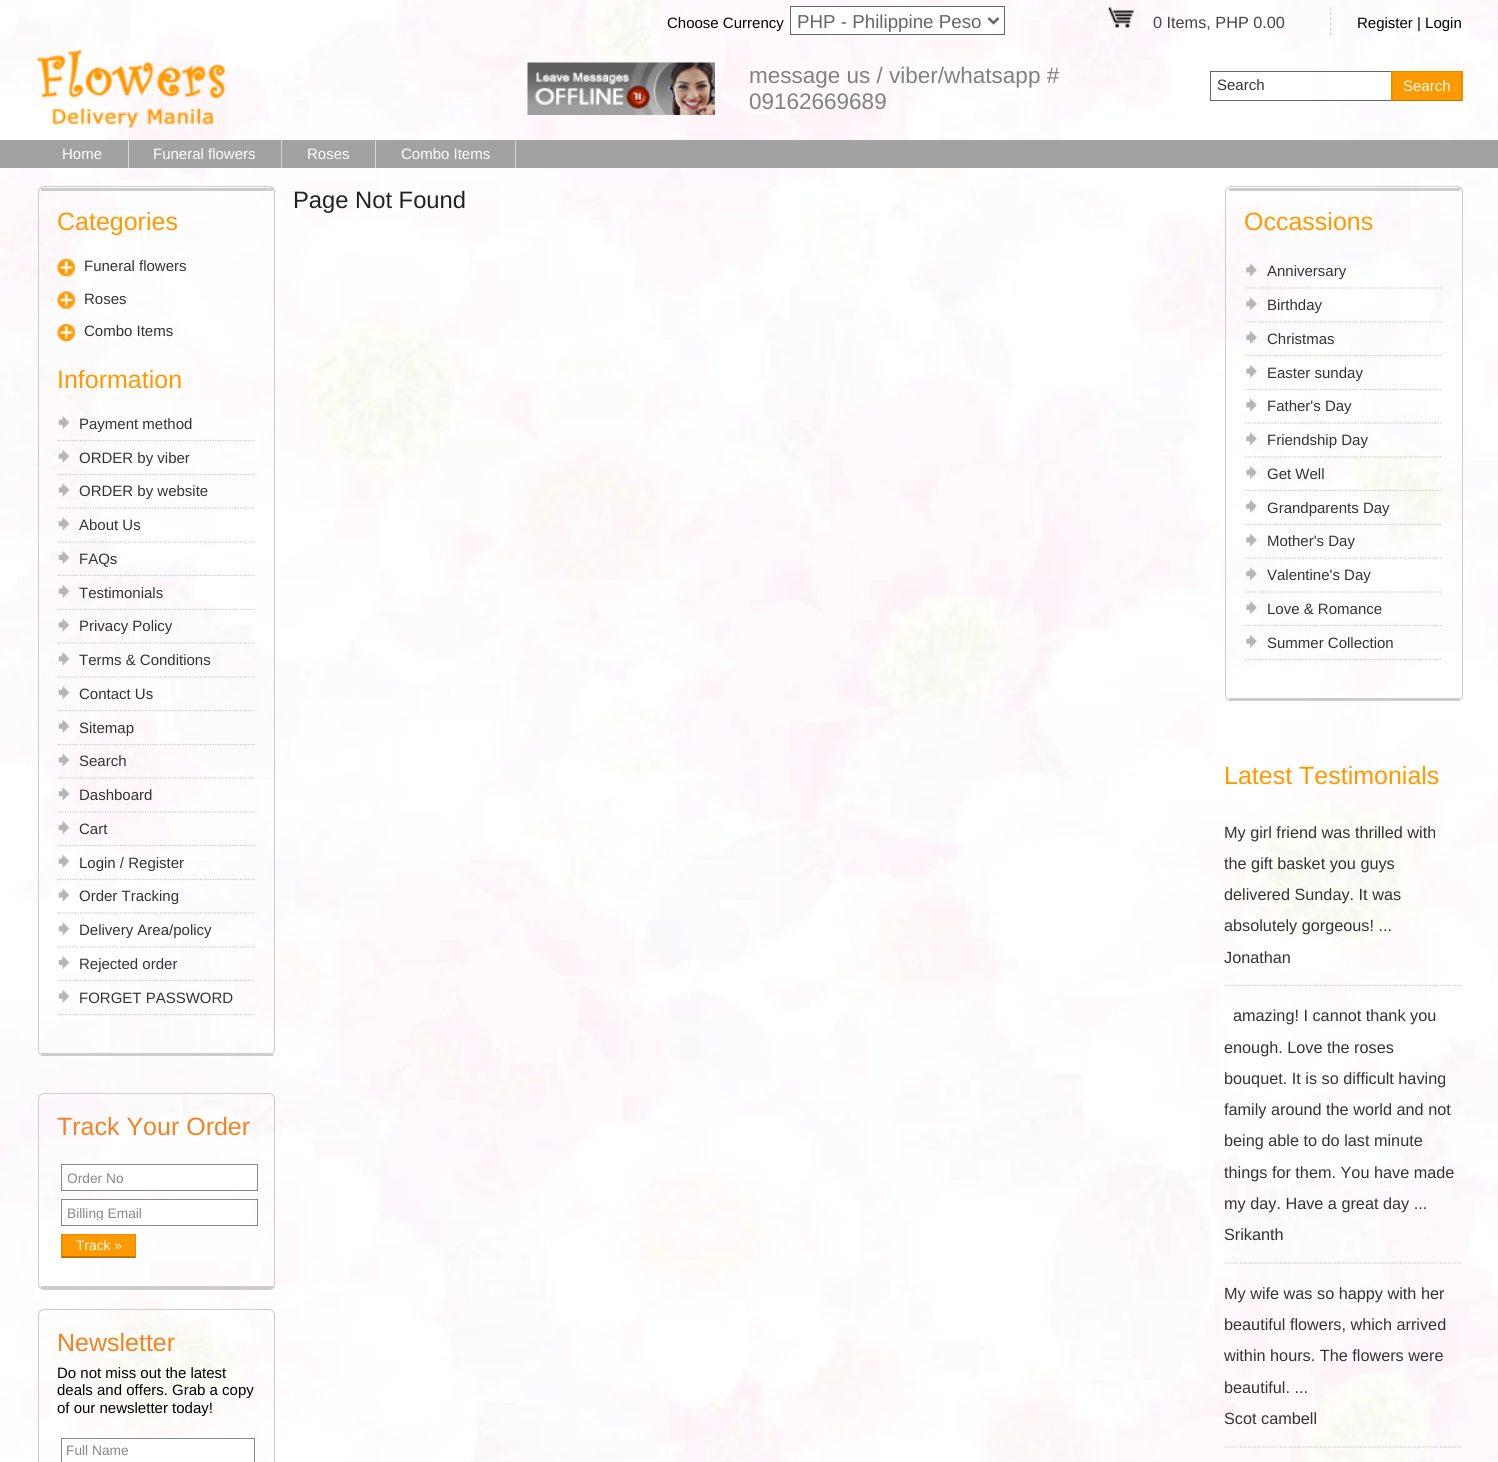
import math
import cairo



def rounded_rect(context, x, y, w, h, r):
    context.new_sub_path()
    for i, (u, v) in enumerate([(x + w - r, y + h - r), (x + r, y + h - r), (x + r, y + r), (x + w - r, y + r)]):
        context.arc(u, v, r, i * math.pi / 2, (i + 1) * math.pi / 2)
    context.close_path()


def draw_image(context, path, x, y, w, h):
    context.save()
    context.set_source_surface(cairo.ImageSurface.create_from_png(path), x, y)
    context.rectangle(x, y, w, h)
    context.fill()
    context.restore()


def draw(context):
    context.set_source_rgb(1, 1, 1)
    context.paint()
    draw_image(context, "images/1.png", 0, 0, 1498, 1462)
    context.set_source_rgb(1, 1, 1)
    context.rectangle(790.5, 6.5, 214, 28)
    context.fill_preserve()
    context.set_source_rgb(102 / 255, 102 / 255, 102 / 255)
    context.set_line_width(1)
    context.stroke()
    context.new_path()
    context.move_to(988.5, 18)
    context.line_to(993.5, 23)
    context.line_to(998.5, 18)
    context.set_line_width(2.5)
    context.stroke()
    draw_image(context, "images/2.png", 1329, 7, 3, 31)
    draw_image(context, "images/3.png", 1108, 7, 26, 21)
    draw_image(context, "images/4.png", 37, 50, 188, 78)
    draw_image(context, "images/5.png", 527, 62, 188, 53)
    context.set_source_rgb(1, 1, 1)
    context.rectangle(1330, 72, 61, 28)
    context.fill()
    context.rectangle(1210.5, 71.5, 252, 29)
    context.set_source_rgb(102 / 255, 102 / 255, 102 / 255)
    context.set_line_width(1)
    context.stroke()
    context.set_source_rgb(1, 153 / 255, 0)
    context.rectangle(1391, 71, 72, 30)
    context.fill()
    context.set_source_rgb(230 / 255, 138 / 255, 0)
    context.new_path()
    context.move_to(1391, 71)
    context.line_to(1462, 71)
    context.line_to(1461, 72)
    context.line_to(1392, 72)
    context.close_path()
    context.fill()
    context.new_path()
    context.move_to(1462.5, 71)
    context.line_to(1462.5, 101)
    context.line_to(1461, 100)
    context.line_to(1461, 72.5)
    context.close_path()
    context.fill()
    context.set_source_rgba(0, 0, 0, 0.25)
    context.new_path()
    context.move_to(1462, 101)
    context.line_to(1391, 101)
    context.line_to(1392, 100)
    context.line_to(1461, 100)
    context.close_path()
    context.fill()
    context.set_source_rgba(0, 0, 0, 0.1)
    context.new_path()
    context.move_to(1391, 101)
    context.line_to(1391, 71)
    context.line_to(1392.5, 72.5)
    context.line_to(1392.5, 100)
    context.close_path()
    context.fill()
    context.set_source_rgb(162 / 255, 162 / 255, 162 / 255)
    context.rectangle(0, 140, 1498, 28)
    context.fill()
    context.set_source_rgb(213 / 255, 213 / 255, 213 / 255)
    context.rectangle(128, 140, 1, 28)
    context.fill()
    context.rectangle(281, 140, 1, 28)
    context.fill()
    context.rectangle(375, 140, 1, 28)
    context.fill()
    context.rectangle(515, 140, 1, 28)
    context.fill()
    rounded_rect(context, 38.5, 186.5, 236, 869, 5.5)
    context.set_source_rgb(204 / 255, 204 / 255, 204 / 255)
    context.stroke()
    context.rectangle(41, 188, 232, 3)
    context.fill()
    context.rectangle(41, 1053, 232, 3)
    context.fill()
    draw_image(context, "images/6.png", 57, 258, 18, 19)
    draw_image(context, "images/7.png", 57, 291, 18, 18)
    draw_image(context, "images/8.png", 57, 323, 18, 19)
    draw_image(context, "images/9.png", 58, 416, 11, 13)
    context.new_path()
    context.move_to(57.5, 440.5)
    context.line_to(255, 440.5)
    context.set_line_width(1.2)
    context.set_dash([1.25, 1.25])
    context.stroke()
    draw_image(context, "images/10.png", 58, 450, 11, 13)
    context.new_path()
    context.move_to(57.5, 474.5)
    context.line_to(255, 474.5)
    context.stroke()
    draw_image(context, "images/11.png", 58, 483, 11, 14)
    context.new_path()
    context.move_to(57.5, 508)
    context.line_to(255, 508)
    context.stroke()
    draw_image(context, "images/12.png", 58, 517, 11, 14)
    context.new_path()
    context.move_to(57.5, 542)
    context.line_to(255, 542)
    context.stroke()
    draw_image(context, "images/13.png", 58, 551, 11, 13)
    context.new_path()
    context.move_to(57.5, 575.5)
    context.line_to(255, 575.5)
    context.stroke()
    draw_image(context, "images/14.png", 58, 585, 11, 13)
    context.new_path()
    context.move_to(57.5, 609.5)
    context.line_to(255, 609.5)
    context.stroke()
    draw_image(context, "images/15.png", 58, 618, 11, 14)
    context.new_path()
    context.move_to(57.5, 643)
    context.line_to(255, 643)
    context.stroke()
    draw_image(context, "images/16.png", 58, 652, 11, 14)
    context.new_path()
    context.move_to(57.5, 677)
    context.line_to(255, 677)
    context.stroke()
    draw_image(context, "images/17.png", 58, 686, 11, 13)
    context.new_path()
    context.move_to(57.5, 710.5)
    context.line_to(255, 710.5)
    context.stroke()
    draw_image(context, "images/18.png", 58, 720, 11, 13)
    context.new_path()
    context.move_to(57.5, 744.5)
    context.line_to(255, 744.5)
    context.stroke()
    draw_image(context, "images/19.png", 58, 753, 11, 14)
    context.new_path()
    context.move_to(57.5, 778)
    context.line_to(255, 778)
    context.stroke()
    draw_image(context, "images/20.png", 58, 787, 11, 14)
    context.new_path()
    context.move_to(57.5, 812)
    context.line_to(255, 812)
    context.stroke()
    draw_image(context, "images/21.png", 58, 821, 11, 13)
    context.new_path()
    context.move_to(57.5, 845.5)
    context.line_to(255, 845.5)
    context.stroke()
    draw_image(context, "images/22.png", 58, 855, 11, 13)
    context.new_path()
    context.move_to(57.5, 879.5)
    context.line_to(255, 879.5)
    context.stroke()
    draw_image(context, "images/23.png", 58, 888, 11, 14)
    context.new_path()
    context.move_to(57.5, 913)
    context.line_to(255, 913)
    context.stroke()
    draw_image(context, "images/24.png", 58, 922, 11, 14)
    context.new_path()
    context.move_to(57.5, 947)
    context.line_to(255, 947)
    context.stroke()
    draw_image(context, "images/25.png", 58, 956, 11, 13)
    context.new_path()
    context.move_to(57.5, 980.5)
    context.line_to(255, 980.5)
    context.stroke()
    draw_image(context, "images/26.png", 58, 990, 11, 13)
    context.new_path()
    context.move_to(57.5, 1014.5)
    context.line_to(255, 1014.5)
    context.stroke()
    rounded_rect(context, 38.5, 1093.5, 236, 196, 5.5)
    context.set_line_width(1)
    context.set_dash([])
    context.stroke()
    context.rectangle(41, 1286, 232, 3)
    context.fill()
    context.set_source_rgb(1, 1, 1)
    context.rectangle(61.5, 1164.5, 196, 26)
    context.fill_preserve()
    context.set_source_rgb(136 / 255, 136 / 255, 136 / 255)
    context.stroke()
    context.set_source_rgb(1, 1, 1)
    context.rectangle(62, 1200, 178, 25)
    context.fill()
    context.rectangle(61.5, 1199.5, 196, 26)
    context.set_source_rgb(136 / 255, 136 / 255, 136 / 255)
    context.stroke()
    context.set_source_rgb(1, 153 / 255, 0)
    context.rectangle(61, 1234, 75, 24)
    context.fill()
    context.set_source_rgb(230 / 255, 138 / 255, 0)
    context.new_path()
    context.move_to(61, 1234)
    context.line_to(136, 1234)
    context.line_to(135, 1235)
    context.line_to(62, 1235)
    context.close_path()
    context.fill()
    context.set_source_rgba(0, 0, 0, 0.1)
    context.new_path()
    context.move_to(136, 1234)
    context.line_to(136, 1257.5)
    context.line_to(135, 1256)
    context.line_to(135, 1235)
    context.close_path()
    context.fill()
    context.set_source_rgb(191 / 255, 115 / 255, 0)
    context.new_path()
    context.move_to(136, 1258)
    context.line_to(61, 1258)
    context.line_to(62, 1256)
    context.line_to(135, 1256)
    context.close_path()
    context.fill()
    context.set_source_rgba(0, 0, 0, 0.1)
    context.new_path()
    context.move_to(61, 1257.5)
    context.line_to(61, 1234)
    context.line_to(62.5, 1235)
    context.line_to(62.5, 1256)
    context.close_path()
    context.fill()
    rounded_rect(context, 38.5, 1309.5, 236, 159, 5.5)
    context.set_source_rgb(204 / 255, 204 / 255, 204 / 255)
    context.stroke()
    context.set_source_rgb(1, 1, 1)
    context.rectangle(61.5, 1438.5, 193, 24)
    context.fill_preserve()
    context.set_source_rgb(136 / 255, 136 / 255, 136 / 255)
    context.stroke()
    rounded_rect(context, 1225.5, 186.5, 237, 514, 5.5)
    context.set_source_rgb(204 / 255, 204 / 255, 204 / 255)
    context.stroke()
    context.rectangle(1229, 188, 231, 3)
    context.fill()
    context.rectangle(1229, 698, 231, 3)
    context.fill()
    draw_image(context, "images/27.png", 1246, 263, 11, 14)
    context.new_path()
    context.move_to(1245, 288)
    context.line_to(1442.5, 288)
    context.set_line_width(1.2)
    context.set_dash([1.25, 1.25])
    context.stroke()
    draw_image(context, "images/28.png", 1246, 297, 11, 14)
    context.new_path()
    context.move_to(1245, 322)
    context.line_to(1442.5, 322)
    context.stroke()
    draw_image(context, "images/29.png", 1246, 331, 11, 13)
    context.new_path()
    context.move_to(1245, 355.5)
    context.line_to(1442.5, 355.5)
    context.stroke()
    draw_image(context, "images/30.png", 1246, 365, 11, 13)
    context.new_path()
    context.move_to(1245, 389.5)
    context.line_to(1442.5, 389.5)
    context.stroke()
    draw_image(context, "images/31.png", 1246, 398, 11, 14)
    context.new_path()
    context.move_to(1245, 423)
    context.line_to(1442.5, 423)
    context.stroke()
    draw_image(context, "images/32.png", 1246, 432, 11, 14)
    context.new_path()
    context.move_to(1245, 457)
    context.line_to(1442.5, 457)
    context.stroke()
    draw_image(context, "images/33.png", 1246, 466, 11, 13)
    context.new_path()
    context.move_to(1245, 490.5)
    context.line_to(1442.5, 490.5)
    context.stroke()
    draw_image(context, "images/34.png", 1246, 500, 11, 13)
    context.new_path()
    context.move_to(1245, 524.5)
    context.line_to(1442.5, 524.5)
    context.stroke()
    draw_image(context, "images/35.png", 1246, 533, 11, 14)
    context.new_path()
    context.move_to(1245, 558)
    context.line_to(1442.5, 558)
    context.stroke()
    draw_image(context, "images/36.png", 1246, 567, 11, 14)
    context.new_path()
    context.move_to(1245, 592)
    context.line_to(1442.5, 592)
    context.stroke()
    draw_image(context, "images/37.png", 1246, 601, 11, 13)
    context.new_path()
    context.move_to(1245, 625.5)
    context.line_to(1442.5, 625.5)
    context.stroke()
    draw_image(context, "images/38.png", 1246, 635, 11, 13)
    context.new_path()
    context.move_to(1245, 659.5)
    context.line_to(1442.5, 659.5)
    context.stroke()
    context.new_path()
    context.move_to(1225, 985.5)
    context.line_to(1462.5, 985.5)
    context.stroke()
    context.new_path()
    context.move_to(1225, 1263)
    context.line_to(1462.5, 1263)
    context.stroke()
    context.new_path()
    context.move_to(1225, 1447)
    context.line_to(1462.5, 1447)
    context.stroke()
    context.select_font_face("Liberation Sans")
    context.set_font_size(15)
    context.set_source_rgb(0, 0, 0)
    context.move_to(667, 28)
    context.show_text("Choose Currency")
    context.set_font_size(18.75)
    context.set_source_rgb(102 / 255, 102 / 255, 102 / 255)
    context.move_to(797, 28)
    context.show_text("PHP - Philippine Peso")
    context.set_font_size(16.25)
    context.set_source_rgb(68 / 255, 68 / 255, 68 / 255)
    context.move_to(1153, 28)
    context.show_text("0 Items, PHP 0.00")
    context.set_font_size(15)
    context.set_source_rgb(0, 0, 0)
    context.move_to(1357, 28)
    context.show_text("Register")
    context.move_to(1417, 28)
    context.show_text("| Login")
    context.set_font_size(22.5)
    context.set_source_rgb(128 / 255, 128 / 255, 128 / 255)
    context.move_to(749, 83)
    context.show_text("message us / viber/whatsapp #")
    context.move_to(749, 109)
    context.show_text("09162669689")
    context.set_font_size(15)
    context.set_source_rgb(51 / 255, 51 / 255, 51 / 255)
    context.move_to(1217, 90)
    context.show_text("Search")
    context.set_source_rgb(1, 1, 1)
    context.move_to(1403, 91)
    context.show_text("Search")
    context.move_to(62, 159)
    context.show_text("Home")
    context.move_to(153, 159)
    context.show_text("Funeral flowers")
    context.move_to(307, 159)
    context.show_text("Roses")
    context.move_to(401, 159)
    context.show_text("Combo Items")
    context.set_font_size(23.75)
    context.set_source_rgb(34 / 255, 34 / 255, 34 / 255)
    context.move_to(293, 208)
    context.show_text("Page Not Found")
    context.set_font_size(25)
    context.set_source_rgb(1, 153 / 255, 0)
    context.move_to(57, 230)
    context.show_text("Categories")
    context.set_font_size(15)
    context.set_source_rgb(51 / 255, 51 / 255, 51 / 255)
    context.move_to(84, 271)
    context.show_text("Funeral flowers")
    context.move_to(84, 304)
    context.show_text("Roses")
    context.move_to(84, 336)
    context.show_text("Combo Items")
    context.set_font_size(25)
    context.set_source_rgb(1, 153 / 255, 0)
    context.move_to(57, 388)
    context.show_text("Information")
    context.set_font_size(15)
    context.set_source_rgb(51 / 255, 51 / 255, 51 / 255)
    context.move_to(79, 429)
    context.show_text("Payment method")
    context.move_to(79, 463)
    context.show_text("ORDER by viber")
    context.move_to(79, 496)
    context.show_text("ORDER by website")
    context.move_to(79, 530)
    context.show_text("About Us")
    context.move_to(79, 564)
    context.show_text("FAQs")
    context.move_to(79, 598)
    context.show_text("Testimonials")
    context.move_to(79, 631)
    context.show_text("Privacy Policy")
    context.move_to(79, 665)
    context.show_text("Terms & Conditions")
    context.move_to(79, 699)
    context.show_text("Contact Us")
    context.move_to(79, 733)
    context.show_text("Sitemap")
    context.move_to(79, 766)
    context.show_text("Search")
    context.move_to(79, 800)
    context.show_text("Dashboard")
    context.move_to(79, 834)
    context.show_text("Cart")
    context.move_to(79, 868)
    context.show_text("Login / Register")
    context.move_to(79, 901)
    context.show_text("Order Tracking")
    context.move_to(79, 935)
    context.show_text("Delivery Area/policy")
    context.move_to(79, 969)
    context.show_text("Rejected order")
    context.move_to(79, 1003)
    context.show_text("FORGET PASSWORD")
    context.set_font_size(25)
    context.set_source_rgb(245 / 255, 130 / 255, 32 / 255)
    context.move_to(57, 1135)
    context.show_text("Track Your Order")
    context.save()
    context.rectangle(68, 1170, 183, 15)
    context.clip()
    context.set_font_size(13.75)
    context.set_source_rgb(136 / 255, 136 / 255, 136 / 255)
    context.move_to(67, 1183)
    context.show_text("Order No")
    context.restore()
    context.save()
    context.rectangle(68, 1205, 183, 15)
    context.clip()
    context.set_font_size(13.75)
    context.set_source_rgb(136 / 255, 136 / 255, 136 / 255)
    context.move_to(67, 1218)
    context.show_text("Billing Email")
    context.restore()
    context.set_font_size(13.75)
    context.set_source_rgb(1, 1, 1)
    context.move_to(76, 1250)
    context.show_text("Track »")
    context.set_font_size(25)
    context.set_source_rgb(245 / 255, 130 / 255, 32 / 255)
    context.move_to(57, 1351)
    context.show_text("Newsletter")
    context.set_font_size(15)
    context.set_source_rgb(0, 0, 0)
    context.move_to(57, 1378)
    context.show_text("Do not miss out the latest")
    context.move_to(57, 1395)
    context.show_text("deals and offers. Grab a copy")
    context.move_to(57, 1413)
    context.show_text("of our newsletter today!")
    context.set_font_size(13.75)
    context.set_source_rgb(136 / 255, 136 / 255, 136 / 255)
    context.move_to(66, 1455)
    context.show_text("Full Name")
    context.set_font_size(25)
    context.set_source_rgb(1, 153 / 255, 0)
    context.move_to(1244, 230)
    context.show_text("Occassions")
    context.set_font_size(15)
    context.set_source_rgb(51 / 255, 51 / 255, 51 / 255)
    context.move_to(1267, 276)
    context.show_text("Anniversary")
    context.move_to(1267, 310)
    context.show_text("Birthday")
    context.move_to(1267, 344)
    context.show_text("Christmas")
    context.move_to(1267, 378)
    context.show_text("Easter sunday")
    context.move_to(1267, 411)
    context.show_text("Father's Day")
    context.move_to(1267, 445)
    context.show_text("Friendship Day")
    context.move_to(1267, 479)
    context.show_text("Get Well")
    context.move_to(1267, 513)
    context.show_text("Grandparents Day")
    context.move_to(1267, 546)
    context.show_text("Mother's Day")
    context.move_to(1267, 580)
    context.show_text("Valentine's Day")
    context.move_to(1267, 614)
    context.show_text("Love & Romance")
    context.move_to(1267, 648)
    context.show_text("Summer Collection")
    context.set_font_size(25)
    context.set_source_rgb(1, 153 / 255, 0)
    context.move_to(1224, 784)
    context.show_text("Latest Testimonials")
    context.set_font_size(16.25)
    context.set_source_rgb(51 / 255, 51 / 255, 51 / 255)
    context.move_to(1224, 838)
    context.show_text("My girl friend was thrilled with")
    context.move_to(1224, 869)
    context.show_text("the gift basket you guys")
    context.move_to(1224, 900)
    context.show_text("delivered Sunday. It was")
    context.move_to(1224, 931)
    context.show_text("absolutely gorgeous! ...")
    context.move_to(1224, 963)
    context.show_text("Jonathan")
    context.move_to(1233, 1021)
    context.show_text("amazing! I cannot thank you")
    context.move_to(1224, 1053)
    context.show_text("enough. Love the roses")
    context.move_to(1224, 1084)
    context.show_text("bouquet. It is so difficult having")
    context.move_to(1224, 1115)
    context.show_text("family around the world and not")
    context.move_to(1224, 1146)
    context.show_text("being able to do last minute")
    context.move_to(1224, 1178)
    context.show_text("things for them. You have made")
    context.move_to(1224, 1209)
    context.show_text("my day. Have a great day ...")
    context.move_to(1224, 1240)
    context.show_text("Srikanth")
    context.move_to(1224, 1299)
    context.show_text("My wife was so happy with her")
    context.move_to(1224, 1330)
    context.show_text("beautiful flowers, which arrived")
    context.move_to(1224, 1361)
    context.show_text("within hours. The flowers were")
    context.move_to(1224, 1393)
    context.show_text("beautiful. ...")
    context.move_to(1224, 1424)
    context.show_text("Scot cambell")


surface = cairo.ImageSurface(cairo.Format.RGB24, 1498, 1462)
context = cairo.Context(surface)
options = cairo.FontOptions()
options.set_hint_metrics(cairo.HintMetrics.OFF)
options.set_hint_style(cairo.HintStyle.NONE)
context.set_font_options(options)
context.set_miter_limit(4)
draw(context)
surface.write_to_png("out.png")
